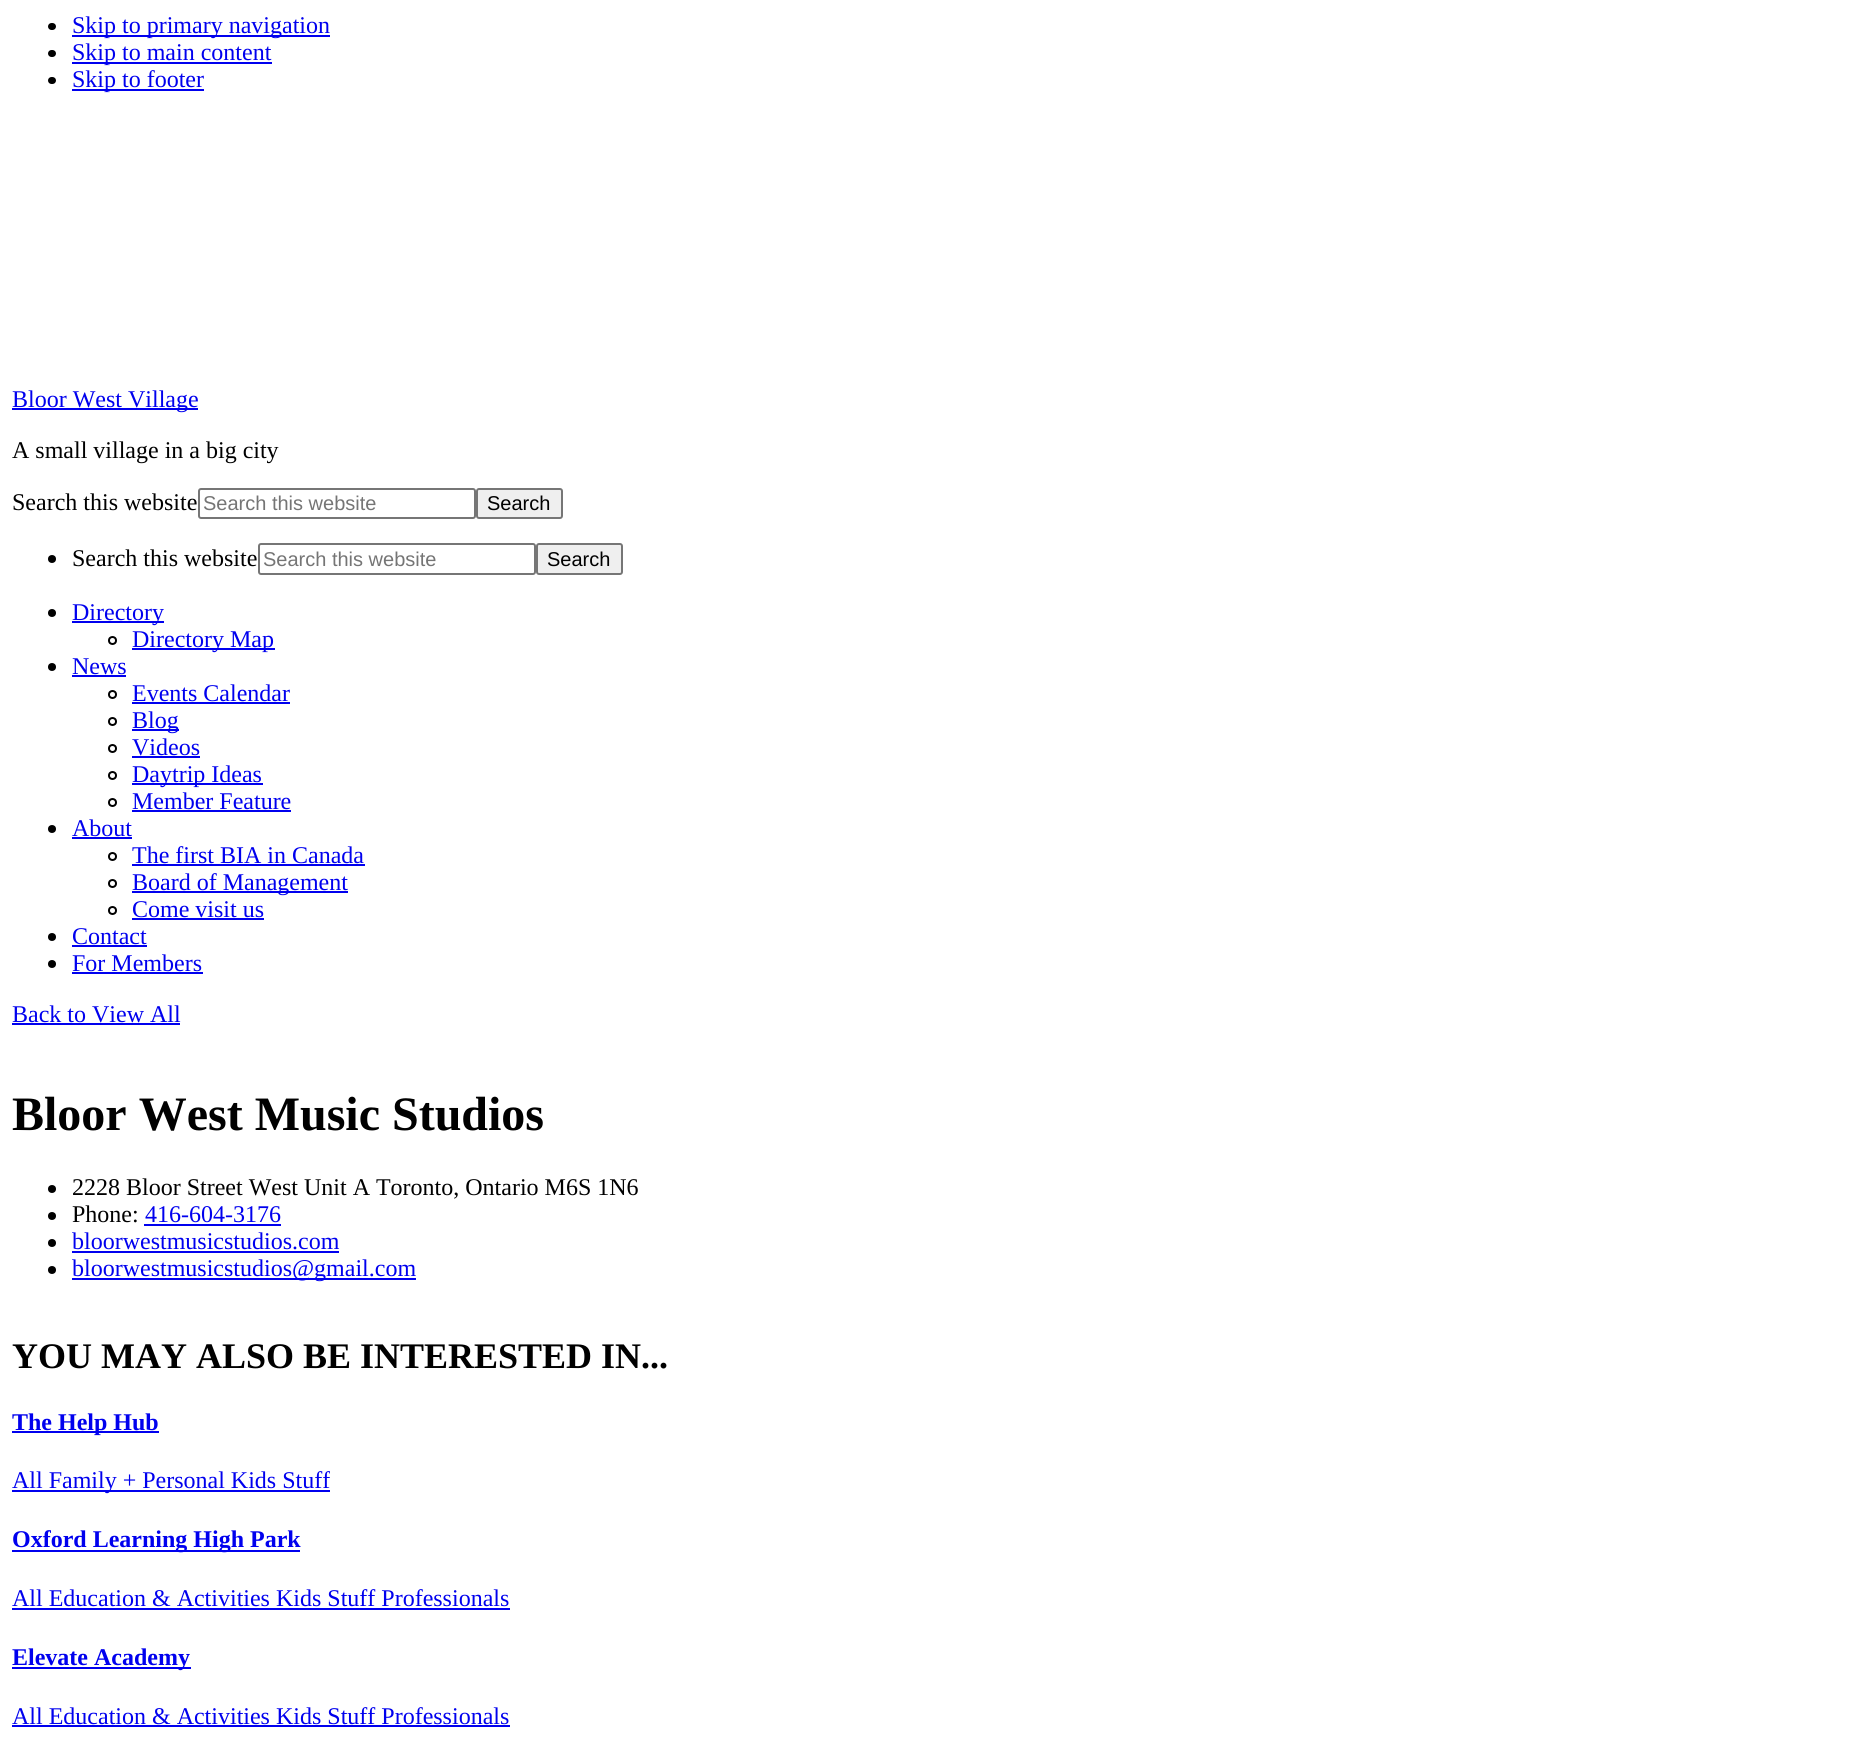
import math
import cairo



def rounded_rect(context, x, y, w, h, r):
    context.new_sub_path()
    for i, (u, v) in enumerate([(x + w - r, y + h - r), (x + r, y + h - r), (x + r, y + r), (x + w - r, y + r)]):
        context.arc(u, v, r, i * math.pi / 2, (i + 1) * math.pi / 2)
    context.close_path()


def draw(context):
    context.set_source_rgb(1, 1, 1)
    context.paint()
    context.set_source_rgb(0, 0, 0)
    rounded_rect(context, 48, 23, 8, 7, 3.5)
    context.fill()
    context.set_source_rgb(0, 0, 238 / 255)
    context.rectangle(72, 35, 258, 2)
    context.fill()
    context.set_source_rgb(0, 0, 0)
    rounded_rect(context, 48, 50, 8, 7, 3.5)
    context.fill()
    context.set_source_rgb(0, 0, 238 / 255)
    context.rectangle(72, 62, 200, 2)
    context.fill()
    context.set_source_rgb(0, 0, 0)
    rounded_rect(context, 48, 77, 8, 7, 3.5)
    context.fill()
    context.set_source_rgb(0, 0, 238 / 255)
    context.rectangle(72, 89, 132, 2)
    context.fill()
    context.rectangle(12, 408, 186, 2)
    context.fill()
    rounded_rect(context, 199, 489, 276, 29, 2)
    context.set_source_rgb(118 / 255, 118 / 255, 118 / 255)
    context.stroke()
    context.set_source_rgb(239 / 255, 239 / 255, 239 / 255)
    rounded_rect(context, 477, 489, 85, 29, 2)
    context.fill_preserve()
    context.set_source_rgb(118 / 255, 118 / 255, 118 / 255)
    context.stroke()
    context.set_source_rgb(0, 0, 0)
    context.arc(52, 559, 4, 0, 2 * math.pi)
    context.fill()
    rounded_rect(context, 259, 544, 276, 30, 2)
    context.set_source_rgb(118 / 255, 118 / 255, 118 / 255)
    context.stroke()
    context.set_source_rgb(239 / 255, 239 / 255, 239 / 255)
    rounded_rect(context, 537, 544, 85, 30, 2)
    context.fill_preserve()
    context.set_source_rgb(118 / 255, 118 / 255, 118 / 255)
    context.stroke()
    context.set_source_rgb(0, 0, 0)
    context.arc(52, 613, 4, 0, 2 * math.pi)
    context.fill()
    context.set_source_rgb(0, 0, 238 / 255)
    context.rectangle(72, 621, 92, 2)
    context.fill()
    context.arc(112.5, 640.5, 3.5, 0, 2 * math.pi)
    context.set_source_rgb(0, 0, 0)
    context.stroke()
    context.set_source_rgb(0, 0, 238 / 255)
    context.rectangle(132, 648, 143, 2)
    context.fill()
    context.set_source_rgb(0, 0, 0)
    context.arc(52, 667, 4, 0, 2 * math.pi)
    context.fill()
    context.set_source_rgb(0, 0, 238 / 255)
    context.rectangle(72, 675, 54, 2)
    context.fill()
    context.arc(112.5, 694.5, 3.5, 0, 2 * math.pi)
    context.set_source_rgb(0, 0, 0)
    context.stroke()
    context.set_source_rgb(0, 0, 238 / 255)
    context.rectangle(132, 702, 158, 2)
    context.fill()
    context.arc(112.5, 721.5, 3.5, 0, 2 * math.pi)
    context.set_source_rgb(0, 0, 0)
    context.stroke()
    context.set_source_rgb(0, 0, 238 / 255)
    context.rectangle(132, 729, 47, 2)
    context.fill()
    context.arc(112.5, 748.5, 3.5, 0, 2 * math.pi)
    context.set_source_rgb(0, 0, 0)
    context.stroke()
    context.set_source_rgb(0, 0, 238 / 255)
    context.rectangle(132, 756, 68, 2)
    context.fill()
    context.arc(112.5, 775.5, 3.5, 0, 2 * math.pi)
    context.set_source_rgb(0, 0, 0)
    context.stroke()
    context.set_source_rgb(0, 0, 238 / 255)
    context.rectangle(132, 783, 131, 2)
    context.fill()
    context.arc(112.5, 802.5, 3.5, 0, 2 * math.pi)
    context.set_source_rgb(0, 0, 0)
    context.stroke()
    context.set_source_rgb(0, 0, 238 / 255)
    context.rectangle(132, 810, 159, 2)
    context.fill()
    context.set_source_rgb(0, 0, 0)
    context.arc(52, 829, 4, 0, 2 * math.pi)
    context.fill()
    context.set_source_rgb(0, 0, 238 / 255)
    context.rectangle(72, 837, 60, 2)
    context.fill()
    context.arc(112.5, 856.5, 3.5, 0, 2 * math.pi)
    context.set_source_rgb(0, 0, 0)
    context.stroke()
    context.set_source_rgb(0, 0, 238 / 255)
    context.rectangle(132, 864, 233, 2)
    context.fill()
    context.arc(112.5, 883.5, 3.5, 0, 2 * math.pi)
    context.set_source_rgb(0, 0, 0)
    context.stroke()
    context.set_source_rgb(0, 0, 238 / 255)
    context.rectangle(132, 891, 216, 2)
    context.fill()
    context.arc(112.5, 910.5, 3.5, 0, 2 * math.pi)
    context.set_source_rgb(0, 0, 0)
    context.stroke()
    context.set_source_rgb(0, 0, 238 / 255)
    context.rectangle(132, 918, 132, 2)
    context.fill()
    context.set_source_rgb(0, 0, 0)
    context.arc(52, 937, 4, 0, 2 * math.pi)
    context.fill()
    context.set_source_rgb(0, 0, 238 / 255)
    context.rectangle(72, 945, 75, 2)
    context.fill()
    context.set_source_rgb(0, 0, 0)
    context.arc(52, 964, 4, 0, 2 * math.pi)
    context.fill()
    context.set_source_rgb(0, 0, 238 / 255)
    context.rectangle(72, 972, 131, 2)
    context.fill()
    context.rectangle(12, 1023, 168, 2)
    context.fill()
    context.set_source_rgb(0, 0, 0)
    context.arc(52, 1189, 4, 0, 2 * math.pi)
    context.fill()
    context.arc(52, 1216, 4, 0, 2 * math.pi)
    context.fill()
    context.set_source_rgb(0, 0, 238 / 255)
    context.rectangle(144, 1224, 137, 2)
    context.fill()
    context.set_source_rgb(0, 0, 0)
    context.arc(52, 1243, 4, 0, 2 * math.pi)
    context.fill()
    context.set_source_rgb(0, 0, 238 / 255)
    context.rectangle(72, 1251, 267, 2)
    context.fill()
    context.set_source_rgb(0, 0, 0)
    context.arc(52, 1270, 4, 0, 2 * math.pi)
    context.fill()
    context.set_source_rgb(0, 0, 238 / 255)
    context.rectangle(72, 1278, 344, 2)
    context.fill()
    context.rectangle(12, 1431, 147, 2)
    context.fill()
    context.rectangle(12, 1490, 318, 2)
    context.fill()
    context.rectangle(12, 1550, 288, 2)
    context.fill()
    context.rectangle(12, 1608, 498, 2)
    context.fill()
    context.rectangle(12, 1667, 179, 2)
    context.fill()
    context.rectangle(12, 1725, 498, 2)
    context.fill()
    context.select_font_face("Liberation Serif")
    context.set_font_size(24)
    context.move_to(72, 33)
    context.show_text("Skip to primary navigation")
    context.move_to(72, 60)
    context.show_text("Skip to main content")
    context.move_to(72, 87)
    context.show_text("Skip to footer")
    context.move_to(12, 407)
    context.show_text("Bloor West Village")
    context.set_source_rgb(0, 0, 0)
    context.move_to(12, 458)
    context.show_text("A small village in a big city")
    context.move_to(12, 510)
    context.show_text("Search this website")
    context.select_font_face("Liberation Sans")
    context.set_font_size(20)
    context.set_source_rgb(117 / 255, 117 / 255, 117 / 255)
    context.move_to(203, 510)
    context.show_text("Search this website")
    context.set_source_rgb(0, 0, 0)
    context.move_to(487, 510)
    context.show_text("Search")
    context.select_font_face("Liberation Serif")
    context.set_font_size(24)
    context.move_to(72, 566)
    context.show_text("Search this website")
    context.select_font_face("Liberation Sans")
    context.set_font_size(20)
    context.set_source_rgb(117 / 255, 117 / 255, 117 / 255)
    context.move_to(263, 566)
    context.show_text("Search this website")
    context.set_source_rgb(0, 0, 0)
    context.move_to(547, 566)
    context.show_text("Search")
    context.select_font_face("Liberation Serif")
    context.set_font_size(24)
    context.set_source_rgb(0, 0, 238 / 255)
    context.move_to(72, 620)
    context.show_text("Directory")
    context.move_to(132, 647)
    context.show_text("Directory Map")
    context.move_to(72, 674)
    context.show_text("News")
    context.move_to(132, 701)
    context.show_text("Events Calendar")
    context.move_to(132, 728)
    context.show_text("Blog")
    context.move_to(132, 755)
    context.show_text("Videos")
    context.move_to(132, 782)
    context.show_text("Daytrip Ideas")
    context.move_to(132, 809)
    context.show_text("Member Feature")
    context.move_to(72, 836)
    context.show_text("About")
    context.move_to(132, 863)
    context.show_text("The first BIA in Canada")
    context.move_to(132, 890)
    context.show_text("Board of Management")
    context.move_to(132, 917)
    context.show_text("Come visit us")
    context.move_to(72, 944)
    context.show_text("Contact")
    context.move_to(72, 971)
    context.show_text("For Members")
    context.move_to(12, 1022)
    context.show_text("Back to View All")
    context.select_font_face("Liberation Serif", cairo.FontSlant.NORMAL, cairo.FontWeight.BOLD)
    context.set_font_size(48)
    context.set_source_rgb(0, 0, 0)
    context.move_to(12, 1130)
    context.show_text("Bloor West Music Studios")
    context.select_font_face("Liberation Serif")
    context.set_font_size(24)
    context.move_to(72, 1195)
    context.show_text("2228 Bloor Street West Unit A Toronto, Ontario M6S 1N6")
    context.move_to(72, 1222)
    context.show_text("Phone:")
    context.set_source_rgb(0, 0, 238 / 255)
    context.move_to(145, 1222)
    context.show_text("416-604-3176")
    context.move_to(72, 1249)
    context.show_text("bloorwestmusicstudios.com")
    context.move_to(72, 1276)
    context.show_text("bloorwestmusicstudios@gmail.com")
    context.select_font_face("Liberation Serif", cairo.FontSlant.NORMAL, cairo.FontWeight.BOLD)
    context.set_font_size(36)
    context.set_source_rgb(0, 0, 0)
    context.move_to(12, 1368)
    context.show_text("YOU MAY ALSO BE INTERESTED IN...")
    context.set_font_size(24)
    context.set_source_rgb(0, 0, 238 / 255)
    context.move_to(12, 1430)
    context.show_text("The Help Hub")
    context.select_font_face("Liberation Serif")
    context.move_to(12, 1488)
    context.show_text("All Family + Personal Kids Stuff")
    context.select_font_face("Liberation Serif", cairo.FontSlant.NORMAL, cairo.FontWeight.BOLD)
    context.move_to(12, 1547)
    context.show_text("Oxford Learning High Park")
    context.select_font_face("Liberation Serif")
    context.move_to(12, 1606)
    context.show_text("All Education & Activities Kids Stuff Professionals")
    context.select_font_face("Liberation Serif", cairo.FontSlant.NORMAL, cairo.FontWeight.BOLD)
    context.move_to(12, 1665)
    context.show_text("Elevate Academy")
    context.select_font_face("Liberation Serif")
    context.move_to(12, 1724)
    context.show_text("All Education & Activities Kids Stuff Professionals")


surface = cairo.ImageSurface(cairo.Format.RGB24, 1858, 1746)
context = cairo.Context(surface)
options = cairo.FontOptions()
options.set_hint_metrics(cairo.HintMetrics.OFF)
options.set_hint_style(cairo.HintStyle.NONE)
context.set_font_options(options)
context.set_miter_limit(4)
draw(context)
surface.write_to_png("out.png")
